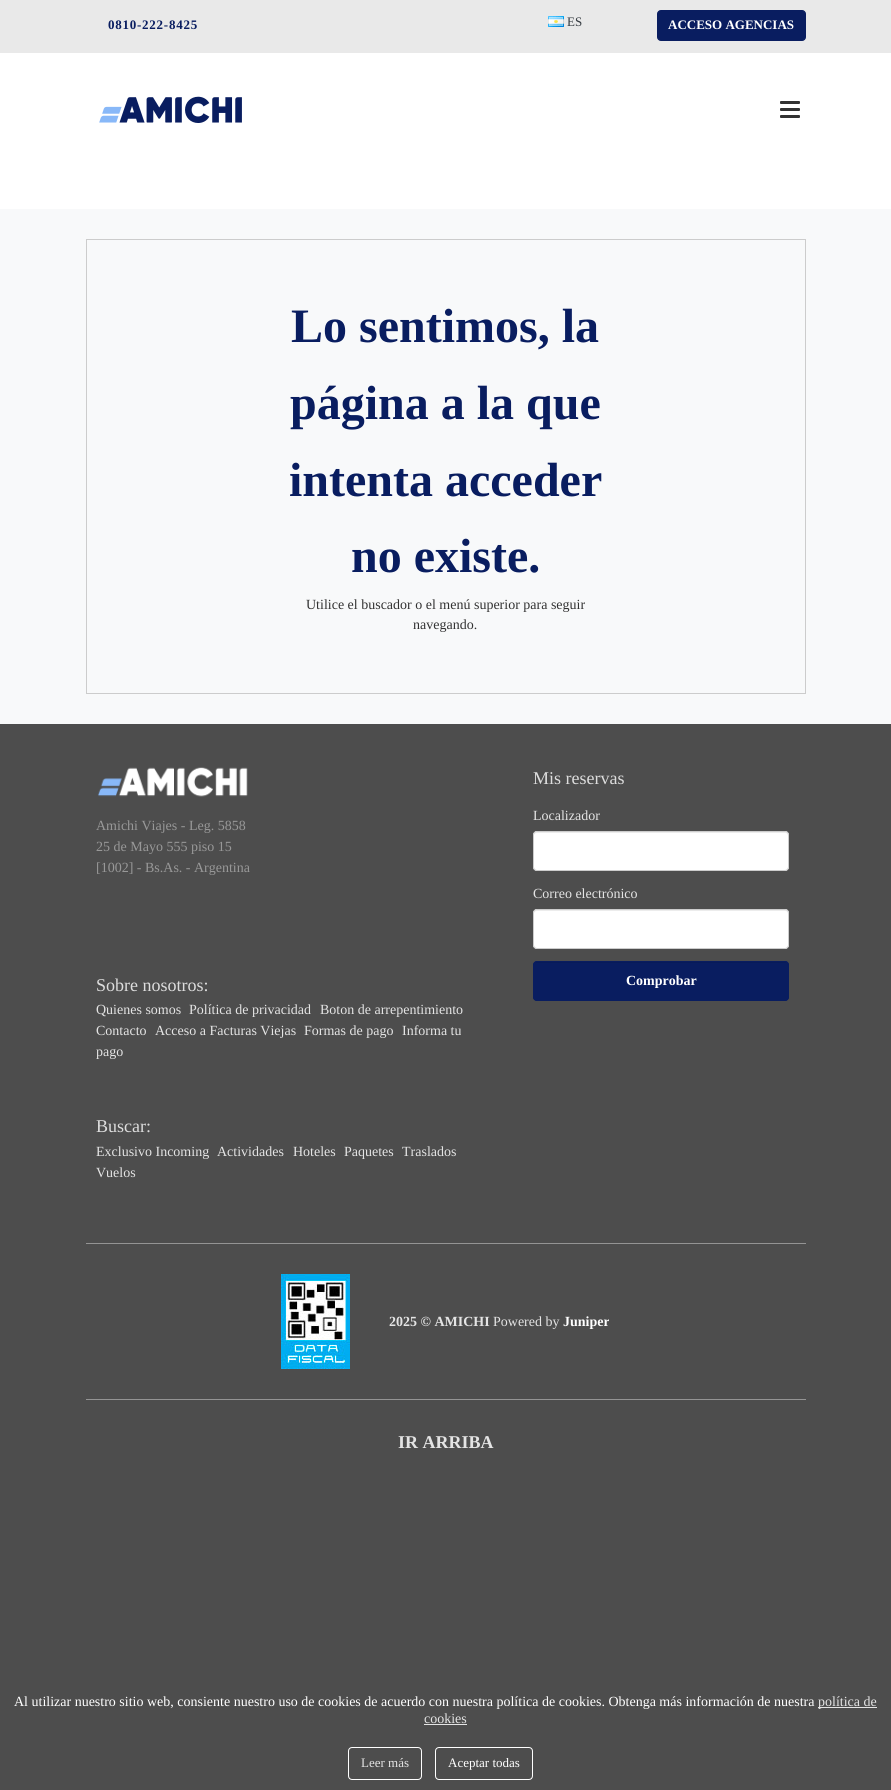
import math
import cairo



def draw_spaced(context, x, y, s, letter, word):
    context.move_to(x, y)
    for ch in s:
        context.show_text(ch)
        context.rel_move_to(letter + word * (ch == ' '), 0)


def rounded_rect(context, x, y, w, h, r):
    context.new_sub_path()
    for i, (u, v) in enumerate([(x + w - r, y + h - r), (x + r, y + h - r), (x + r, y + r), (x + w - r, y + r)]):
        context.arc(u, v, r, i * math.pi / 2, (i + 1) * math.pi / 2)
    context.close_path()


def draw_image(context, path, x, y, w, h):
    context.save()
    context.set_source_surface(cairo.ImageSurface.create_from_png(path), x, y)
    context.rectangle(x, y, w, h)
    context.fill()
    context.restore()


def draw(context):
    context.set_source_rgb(248 / 255, 249 / 255, 250 / 255)
    context.paint()
    context.set_source_rgb(1, 1, 1)
    context.rectangle(0, 53, 891, 156)
    context.fill()
    context.set_source_rgb(233 / 255, 233 / 255, 233 / 255)
    context.rectangle(0, 0, 891, 53)
    context.fill()
    draw_image(context, "images/1.png", 548, 16, 16, 11)
    context.set_source_rgb(9 / 255, 29 / 255, 96 / 255)
    rounded_rect(context, 657.5, 10.5, 148, 30, 3.5)
    context.fill_preserve()
    context.set_line_width(1)
    context.stroke()
    draw_image(context, "images/2.png", 99, 96, 143, 27)
    context.set_source_rgb(50 / 255, 50 / 255, 50 / 255)
    rounded_rect(context, 780, 101, 20, 3, 1)
    context.fill()
    rounded_rect(context, 780, 108, 20, 3, 1)
    context.fill()
    rounded_rect(context, 780, 115, 20, 3, 1)
    context.fill()
    context.rectangle(86.5, 239.5, 719, 454)
    context.set_source_rgb(204 / 255, 204 / 255, 204 / 255)
    context.stroke()
    context.set_source_rgb(77 / 255, 77 / 255, 77 / 255)
    context.new_path()
    context.move_to(-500, 724)
    context.line_to(-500, 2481)
    context.line_to(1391, 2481)
    context.line_to(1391, 724)
    context.line_to(891, 724)
    context.line_to(891, 1481)
    context.line_to(0, 1481)
    context.line_to(0, 724)
    context.close_path()
    context.fill()
    context.rectangle(0, 724, 891, 757)
    context.fill()
    draw_image(context, "images/3.png", 97, 767, 151, 30)
    context.set_source_rgb(1, 1, 1)
    rounded_rect(context, 533, 831, 256, 40, 4)
    context.fill()
    context.set_source_rgb(236 / 255, 236 / 255, 236 / 255)
    context.new_path()
    context.move_to(537, 833)
    context.line_to(786, 833)
    context.line_to(788, 834)
    context.line_to(788, 836)
    context.curve_to(788, 834, 787, 832, 785, 832)
    context.line_to(537, 832)
    context.curve_to(535, 832, 534, 834, 534, 836)
    context.curve_to(534, 834, 535, 833, 537, 833)
    context.close_path()
    context.fill()
    rounded_rect(context, 533.5, 831.5, 255, 39, 3.5)
    context.set_source_rgb(204 / 255, 204 / 255, 204 / 255)
    context.stroke()
    context.set_source_rgb(1, 1, 1)
    rounded_rect(context, 533, 909, 256, 40, 4)
    context.fill()
    context.set_source_rgb(236 / 255, 236 / 255, 236 / 255)
    context.new_path()
    context.move_to(537, 911)
    context.line_to(786, 911)
    context.line_to(788, 912)
    context.line_to(788, 914)
    context.curve_to(788, 912, 787, 910, 785, 910)
    context.line_to(537, 910)
    context.curve_to(535, 910, 534, 912, 534, 914)
    context.curve_to(534, 912, 535, 911, 537, 911)
    context.close_path()
    context.fill()
    rounded_rect(context, 533.5, 909.5, 255, 39, 3.5)
    context.set_source_rgb(204 / 255, 204 / 255, 204 / 255)
    context.stroke()
    context.set_source_rgb(9 / 255, 29 / 255, 96 / 255)
    rounded_rect(context, 533, 961, 256, 40, 4)
    context.fill()
    context.set_source_rgb(8 / 255, 27 / 255, 89 / 255)
    context.new_path()
    context.move_to(537, 963)
    context.line_to(786, 963)
    context.line_to(788, 964)
    context.line_to(788, 966)
    context.curve_to(788, 964, 787, 962, 785, 962)
    context.line_to(537, 962)
    context.curve_to(535, 962, 534, 964, 534, 966)
    context.curve_to(534, 964, 535, 963, 537, 963)
    context.close_path()
    context.fill()
    rounded_rect(context, 533.5, 961.5, 255, 39, 3.5)
    context.set_source_rgb(9 / 255, 29 / 255, 96 / 255)
    context.stroke()
    context.set_source_rgb(148 / 255, 148 / 255, 148 / 255)
    context.rectangle(86, 1243, 720, 1)
    context.fill()
    context.rectangle(86, 1399, 720, 1)
    context.fill()
    draw_image(context, "images/4.png", 281, 1274, 69, 95)
    context.set_source_rgb(228 / 255, 228 / 255, 228 / 255)
    context.rectangle(818, 1707, 59, 1)
    context.fill()
    context.rectangle(424, 1724, 43, 1)
    context.fill()
    rounded_rect(context, 348.5, 1747.5, 73, 32, 3.5)
    context.set_source_rgb(1, 1, 1)
    context.stroke()
    rounded_rect(context, 435.5, 1747.5, 97, 32, 3.5)
    context.stroke()
    context.select_font_face("Liberation Serif", cairo.FontSlant.NORMAL, cairo.FontWeight.BOLD)
    context.set_font_size(13)
    context.set_source_rgb(9 / 255, 29 / 255, 96 / 255)
    draw_spaced(context, 108, 29, "0810-222-8425", 0.75, 0)
    context.select_font_face("Liberation Serif")
    context.set_source_rgb(52 / 255, 58 / 255, 64 / 255)
    context.move_to(567, 26)
    context.show_text("ES")
    context.select_font_face("Liberation Serif", cairo.FontSlant.NORMAL, cairo.FontWeight.BOLD)
    context.set_source_rgb(1, 1, 1)
    context.move_to(668, 29)
    context.show_text("ACCESO AGENCIAS")
    context.set_font_size(48)
    context.set_source_rgb(9 / 255, 29 / 255, 96 / 255)
    context.move_to(291, 342)
    context.show_text("Lo sentimos, la")
    context.move_to(290, 419)
    context.show_text("página a la que")
    context.move_to(289, 496)
    context.show_text("intenta acceder")
    context.move_to(351, 572)
    context.show_text("no existe.")
    context.select_font_face("Liberation Serif")
    context.set_font_size(14)
    context.set_source_rgb(50 / 255, 50 / 255, 50 / 255)
    context.move_to(306, 609)
    context.show_text("Utilice el buscador o el menú superior para seguir")
    context.move_to(413, 629)
    context.show_text("navegando.")
    context.set_source_rgb(152 / 255, 152 / 255, 152 / 255)
    context.move_to(96, 830)
    context.show_text("Amichi Viajes - Leg. 5858")
    context.move_to(96, 851)
    context.show_text("25 de Mayo 555 piso 15")
    context.move_to(96, 872)
    context.show_text("[1002] - Bs.As. - Argentina")
    context.set_font_size(18)
    context.set_source_rgb(221 / 255, 221 / 255, 221 / 255)
    context.move_to(96, 991)
    context.show_text("Sobre nosotros:")
    context.set_font_size(14)
    context.set_source_rgb(228 / 255, 228 / 255, 228 / 255)
    context.move_to(96, 1014)
    context.show_text("Quienes somos")
    context.move_to(189, 1014)
    context.show_text("Política de privacidad")
    context.move_to(320, 1014)
    context.show_text("Boton de arrepentimiento")
    context.move_to(96, 1035)
    context.show_text("Contacto")
    context.move_to(155, 1035)
    context.show_text("Acceso a Facturas Viejas")
    context.move_to(304, 1035)
    context.show_text("Formas de pago")
    context.move_to(402, 1035)
    context.show_text("Informa tu")
    context.move_to(96, 1056)
    context.show_text("pago")
    context.set_font_size(18)
    context.set_source_rgb(221 / 255, 221 / 255, 221 / 255)
    context.move_to(96, 1132)
    context.show_text("Buscar:")
    context.set_font_size(14)
    context.set_source_rgb(228 / 255, 228 / 255, 228 / 255)
    context.move_to(96, 1156)
    context.show_text("Exclusivo Incoming")
    context.move_to(217, 1156)
    context.show_text("Actividades")
    context.move_to(293, 1156)
    context.show_text("Hoteles")
    context.move_to(344, 1156)
    context.show_text("Paquetes")
    context.move_to(402, 1156)
    context.show_text("Traslados")
    context.move_to(96, 1177)
    context.show_text("Vuelos")
    context.set_font_size(18)
    context.set_source_rgb(221 / 255, 221 / 255, 221 / 255)
    context.move_to(533, 784)
    context.show_text("Mis reservas")
    context.set_font_size(14)
    context.set_source_rgb(228 / 255, 228 / 255, 228 / 255)
    context.move_to(533, 820)
    context.show_text("Localizador")
    context.move_to(533, 898)
    context.show_text("Correo electrónico")
    context.select_font_face("Liberation Serif", cairo.FontSlant.NORMAL, cairo.FontWeight.BOLD)
    context.set_source_rgb(1, 1, 1)
    context.move_to(626, 985)
    context.show_text("Comprobar")
    context.set_source_rgb(228 / 255, 228 / 255, 228 / 255)
    context.move_to(389, 1326)
    context.show_text("2025 © AMICHI")
    context.select_font_face("Liberation Serif")
    context.move_to(493, 1326)
    context.show_text("Powered by")
    context.select_font_face("Liberation Serif", cairo.FontSlant.NORMAL, cairo.FontWeight.BOLD)
    context.set_source_rgb(1, 1, 1)
    context.move_to(563, 1326)
    context.show_text("Juniper")
    context.set_font_size(18)
    context.set_source_rgb(228 / 255, 228 / 255, 228 / 255)
    context.move_to(398, 1448)
    context.show_text("IR ARRIBA")
    context.select_font_face("Liberation Serif")
    context.set_font_size(14)
    context.set_source_rgb(1, 1, 1)
    context.move_to(14, 1706)
    context.show_text("Al utilizar nuestro sitio web, consiente nuestro uso de cookies de acuerdo con nuestra política de cookies. Obtenga más información de nuestra")
    context.set_source_rgb(228 / 255, 228 / 255, 228 / 255)
    context.move_to(818, 1706)
    context.show_text("política de")
    context.move_to(424, 1723)
    context.show_text("cookies")
    context.set_font_size(13)
    context.move_to(361, 1767)
    context.show_text("Leer más")
    context.set_source_rgb(1, 1, 1)
    context.move_to(448, 1767)
    context.show_text("Aceptar todas")


surface = cairo.ImageSurface(cairo.Format.RGB24, 891, 1790)
context = cairo.Context(surface)
options = cairo.FontOptions()
options.set_hint_metrics(cairo.HintMetrics.OFF)
options.set_hint_style(cairo.HintStyle.NONE)
context.set_font_options(options)
context.set_miter_limit(4)
draw(context)
surface.write_to_png("out.png")
